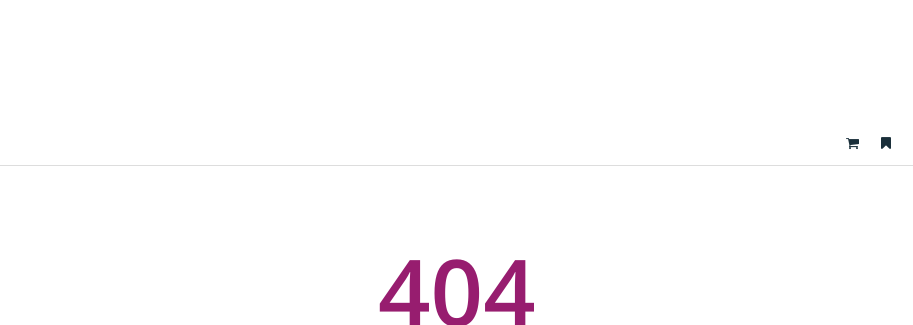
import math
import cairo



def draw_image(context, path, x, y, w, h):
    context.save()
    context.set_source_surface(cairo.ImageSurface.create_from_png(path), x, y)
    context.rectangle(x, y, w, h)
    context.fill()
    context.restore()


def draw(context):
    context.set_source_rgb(1, 1, 1)
    context.paint()
    context.set_source_rgb(221 / 255, 221 / 255, 221 / 255)
    context.rectangle(0, 165, 913, 1)
    context.fill()
    draw_image(context, "images/1.png", 846, 138, 13, 12)
    draw_image(context, "images/2.png", 881, 137, 10, 12)
    context.select_font_face("Open Sans SemiBold")
    context.set_font_size(92)
    context.set_source_rgb(151 / 255, 29 / 255, 111 / 255)
    context.move_to(378, 326)
    context.show_text("404")


surface = cairo.ImageSurface(cairo.Format.RGB24, 913, 325)
context = cairo.Context(surface)
options = cairo.FontOptions()
options.set_hint_metrics(cairo.HintMetrics.OFF)
options.set_hint_style(cairo.HintStyle.NONE)
context.set_font_options(options)
context.set_miter_limit(4)
draw(context)
surface.write_to_png("out.png")
